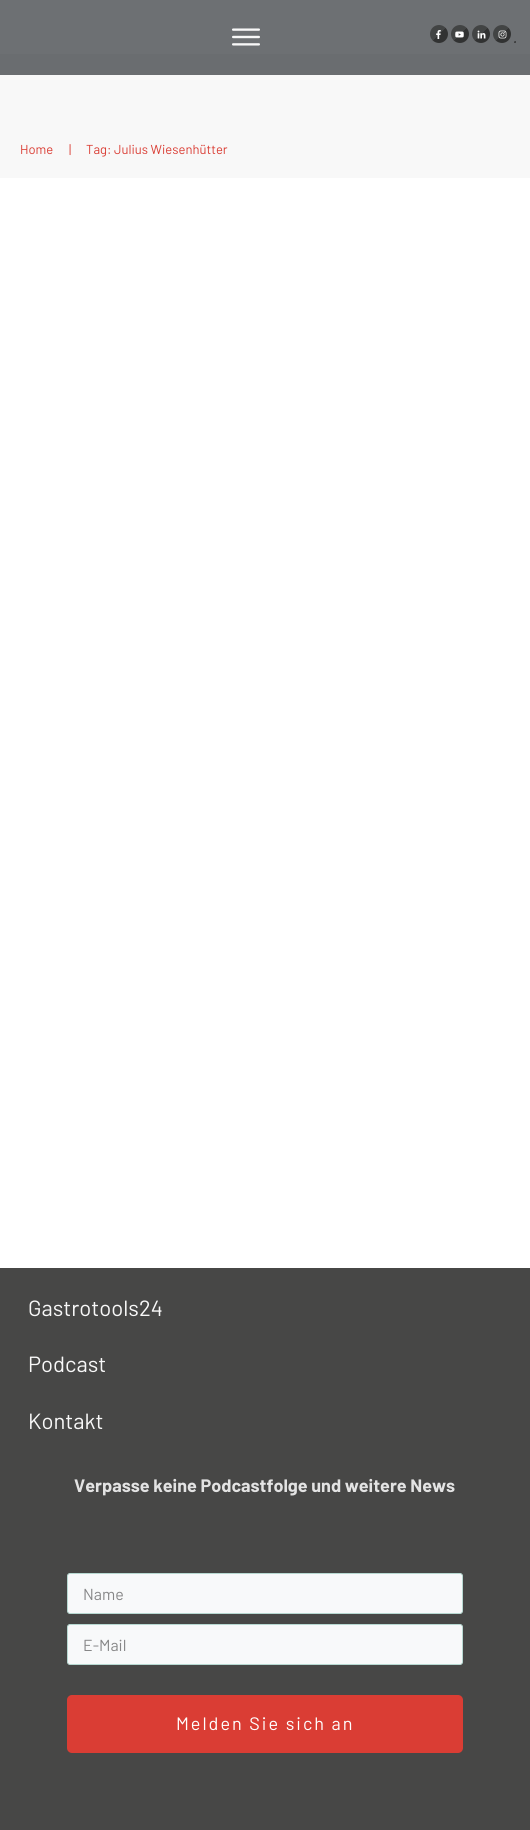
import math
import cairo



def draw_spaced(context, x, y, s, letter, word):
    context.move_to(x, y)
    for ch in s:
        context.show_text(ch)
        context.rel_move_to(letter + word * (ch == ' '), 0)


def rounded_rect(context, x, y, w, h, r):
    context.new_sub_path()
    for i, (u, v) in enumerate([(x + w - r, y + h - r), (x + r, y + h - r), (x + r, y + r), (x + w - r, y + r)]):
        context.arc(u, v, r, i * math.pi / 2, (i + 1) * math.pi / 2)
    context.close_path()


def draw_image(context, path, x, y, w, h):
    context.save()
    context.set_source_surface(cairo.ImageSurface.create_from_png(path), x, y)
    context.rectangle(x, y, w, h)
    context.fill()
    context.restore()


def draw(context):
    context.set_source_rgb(1, 1, 1)
    context.paint()
    context.set_source_rgb(109 / 255, 112 / 255, 115 / 255)
    context.rectangle(0, 0, 530, 54)
    context.fill()
    draw_image(context, "images/1.png", 232, 28, 28, 18)
    gradient = cairo.LinearGradient(430, 25, 448, 43)
    gradient.add_color_stop_rgba(0.5, 66 / 255, 68 / 255, 68 / 255, 1)
    gradient.add_color_stop_rgba(0.5, 49 / 255, 50 / 255, 50 / 255, 1)
    context.set_source(gradient)
    context.arc(439, 34, 9, 0, 2 * math.pi)
    context.fill()
    draw_image(context, "images/2.png", 436, 30, 5, 9)
    gradient = cairo.LinearGradient(451, 25, 469, 43)
    gradient.add_color_stop_rgba(0.5, 66 / 255, 68 / 255, 68 / 255, 1)
    gradient.add_color_stop_rgba(0.5, 49 / 255, 50 / 255, 50 / 255, 1)
    context.set_source(gradient)
    context.arc(460, 34, 9, 0, 2 * math.pi)
    context.fill()
    draw_image(context, "images/3.png", 455, 31, 9, 7)
    gradient = cairo.LinearGradient(472, 25, 490, 43)
    gradient.add_color_stop_rgba(0.5, 66 / 255, 68 / 255, 68 / 255, 1)
    gradient.add_color_stop_rgba(0.5, 49 / 255, 50 / 255, 50 / 255, 1)
    context.set_source(gradient)
    context.arc(481, 34, 9, 0, 2 * math.pi)
    context.fill()
    draw_image(context, "images/4.png", 477, 30, 9, 9)
    gradient = cairo.LinearGradient(493, 25, 511, 43)
    gradient.add_color_stop_rgba(0.5, 66 / 255, 68 / 255, 68 / 255, 1)
    gradient.add_color_stop_rgba(0.5, 49 / 255, 50 / 255, 50 / 255, 1)
    context.set_source(gradient)
    context.arc(502, 34, 9, 0, 2 * math.pi)
    context.fill()
    draw_image(context, "images/5.png", 498, 30, 9, 9)
    gradient = cairo.LinearGradient(514, 41, 516, 43)
    gradient.add_color_stop_rgba(0.5, 66 / 255, 68 / 255, 68 / 255, 1)
    gradient.add_color_stop_rgba(0.5, 49 / 255, 50 / 255, 50 / 255, 1)
    context.set_source(gradient)
    context.arc(515, 42, 1, 0, 2 * math.pi)
    context.fill()
    context.set_source_rgb(248 / 255, 248 / 255, 248 / 255)
    context.rectangle(0, 75, 530, 103)
    context.fill()
    context.set_source_rgb(106 / 255, 109 / 255, 112 / 255)
    context.rectangle(0, 54, 530, 21)
    context.fill()
    context.set_source_rgb(71 / 255, 71 / 255, 70 / 255)
    context.rectangle(0, 1268, 530, 562)
    context.fill()
    context.set_source_rgb(248 / 255, 249 / 255, 250 / 255)
    rounded_rect(context, 67.5, 1573.5, 395, 40, 2.5)
    context.fill_preserve()
    context.set_source_rgb(183 / 255, 216 / 255, 209 / 255)
    context.set_line_width(1)
    context.stroke()
    context.set_source_rgb(248 / 255, 249 / 255, 250 / 255)
    rounded_rect(context, 67.5, 1624.5, 395, 40, 2.5)
    context.fill_preserve()
    context.set_source_rgb(183 / 255, 216 / 255, 209 / 255)
    context.stroke()
    context.set_source_rgb(218 / 255, 61 / 255, 52 / 255)
    rounded_rect(context, 67, 1695, 396, 58, 5)
    context.fill()
    context.select_font_face("Barlow")
    context.set_font_size(13)
    context.move_to(20, 154)
    context.show_text("Home")
    context.move_to(69, 154)
    context.show_text("|")
    context.move_to(86, 154)
    context.show_text("Tag: Julius Wiesenhütter")
    context.set_font_size(22)
    context.set_source_rgb(248 / 255, 248 / 255, 248 / 255)
    context.move_to(28, 1316)
    context.show_text("Gastrotools24")
    context.move_to(28, 1372)
    context.show_text("Podcast")
    context.move_to(28, 1429)
    context.show_text("Kontakt")
    context.select_font_face("Barlow", cairo.FontSlant.NORMAL, cairo.FontWeight.BOLD)
    context.set_font_size(18)
    context.set_source_rgb(227 / 255, 227 / 255, 227 / 255)
    context.move_to(74, 1492)
    context.show_text("Verpasse keine Podcastfolge und weitere News")
    context.select_font_face("Barlow")
    context.set_font_size(16)
    context.set_source_rgb(134 / 255, 134 / 255, 135 / 255)
    context.move_to(83, 1600)
    context.show_text("Name")
    context.move_to(83, 1651)
    context.show_text("E-Mail")
    context.set_font_size(18)
    context.set_source_rgb(1, 1, 1)
    draw_spaced(context, 176, 1730, "Melden Sie sich an", 2, 0)


surface = cairo.ImageSurface(cairo.Format.RGB24, 530, 1830)
context = cairo.Context(surface)
options = cairo.FontOptions()
options.set_hint_metrics(cairo.HintMetrics.OFF)
options.set_hint_style(cairo.HintStyle.NONE)
context.set_font_options(options)
context.set_miter_limit(4)
draw(context)
surface.write_to_png("out.png")
